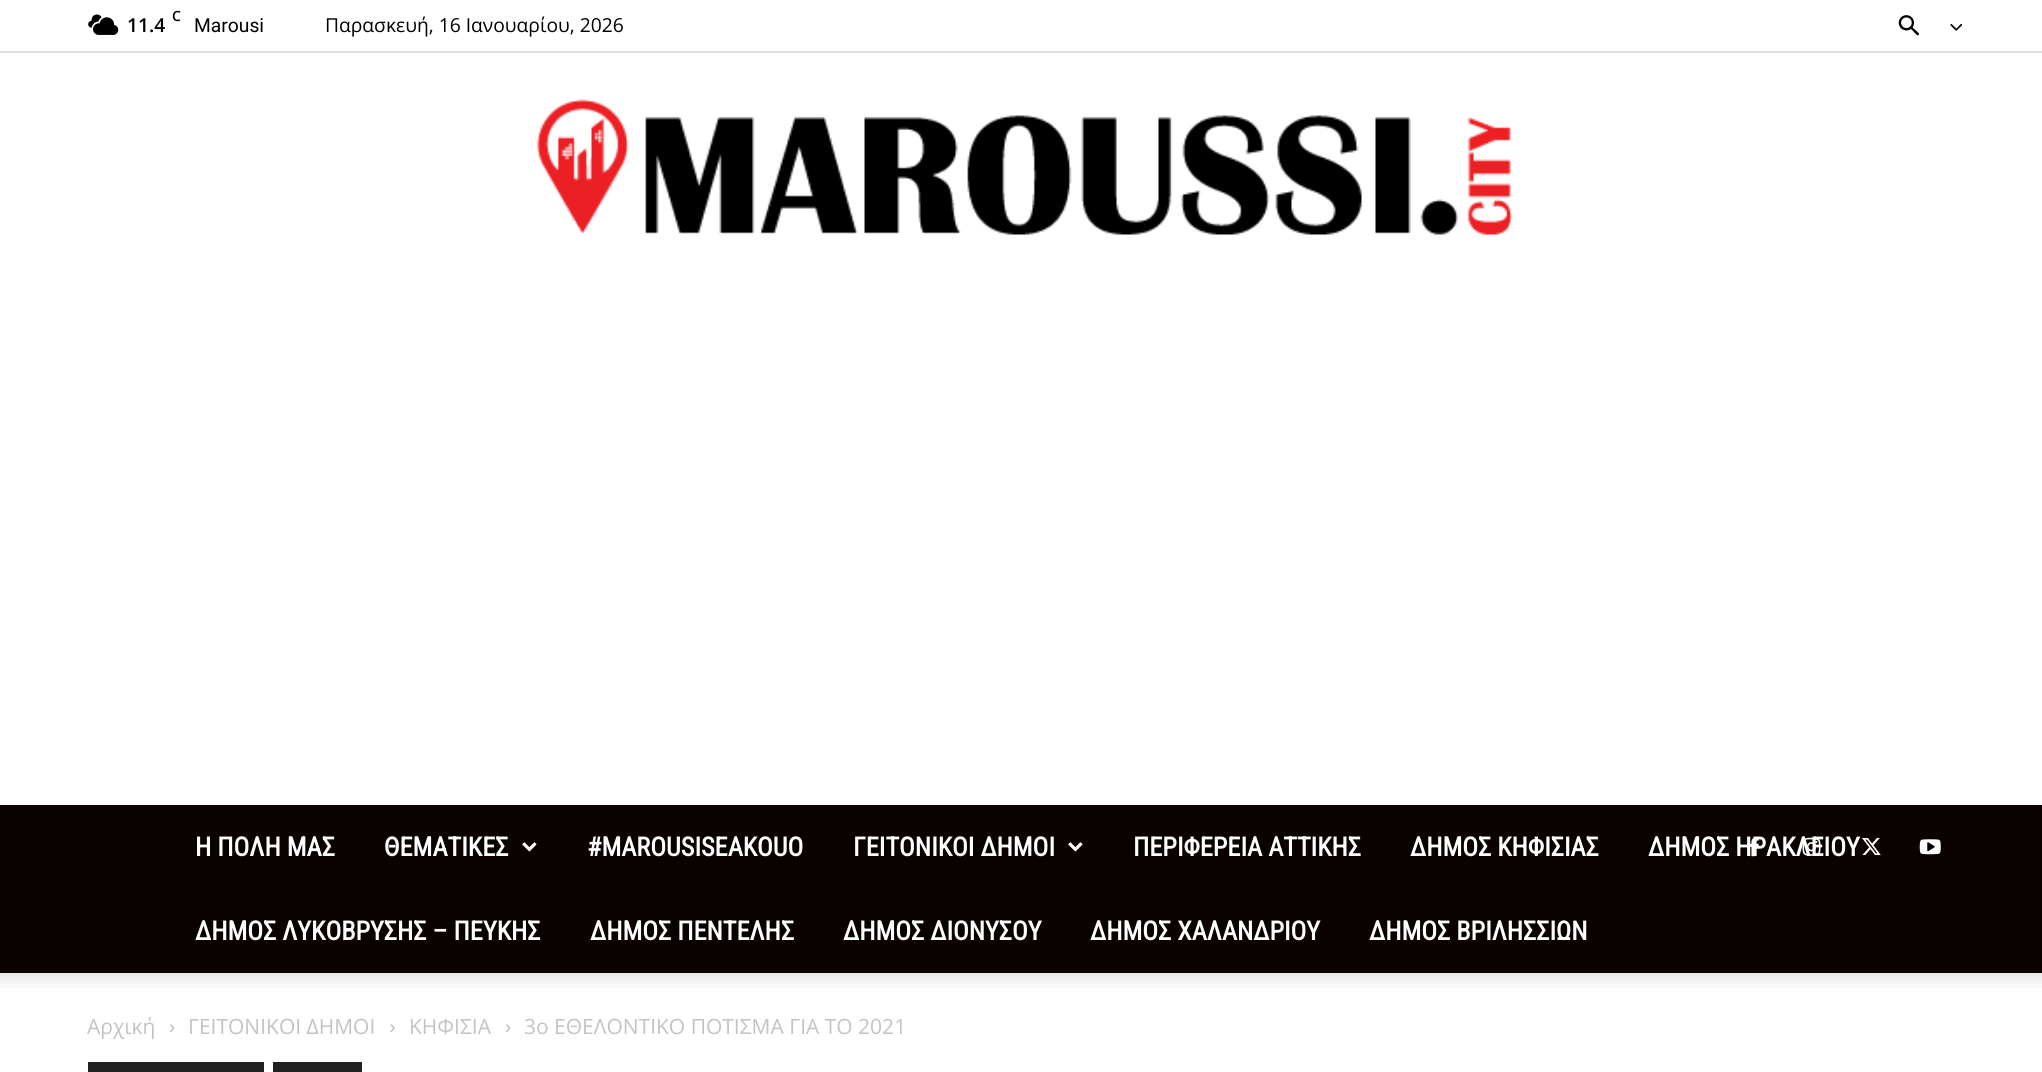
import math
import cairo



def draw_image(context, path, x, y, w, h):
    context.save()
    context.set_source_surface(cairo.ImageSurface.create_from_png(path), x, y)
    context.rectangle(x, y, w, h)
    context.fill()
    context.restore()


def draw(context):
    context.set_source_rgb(1, 1, 1)
    context.paint()
    context.set_source_rgb(224 / 255, 224 / 255, 224 / 255)
    context.rectangle(0, 51, 2042, 2)
    context.fill()
    draw_image(context, "images/1.png", 88, 14, 31, 21)
    draw_image(context, "images/2.png", 1898, 15, 21, 21)
    draw_image(context, "images/3.png", 1950, 24, 13, 7)
    draw_image(context, "images/4.png", 536, 99, 977, 136)
    context.set_source_rgb(10 / 255, 1 / 255, 1 / 255)
    context.rectangle(0, 805, 2042, 168)
    context.fill()
    draw_image(context, "images/5.png", 522, 842, 15, 10)
    draw_image(context, "images/5.png", 1068, 842, 15, 10)
    draw_image(context, "images/8.png", 1862, 838, 19, 18)
    draw_image(context, "images/9.png", 1919, 839, 22, 16)
    draw_image(context, "images/10.png", 0, 973, 2042, 15)
    draw_image(context, "images/11.png", 169, 1024, 6, 9)
    draw_image(context, "images/12.png", 390, 1024, 5, 9)
    draw_image(context, "images/11.png", 505, 1024, 6, 9)
    context.set_source_rgb(34 / 255, 34 / 255, 34 / 255)
    context.rectangle(88, 1062, 176, 10)
    context.fill()
    context.rectangle(273, 1062, 89, 10)
    context.fill()
    context.select_font_face("Open Sans SemiBold")
    context.set_font_size(14)
    context.set_source_rgb(0, 0, 0)
    context.move_to(172, 21)
    context.show_text("C")
    context.set_font_size(19.25)
    context.move_to(127, 32)
    context.show_text("11.4")
    context.select_font_face("Roboto")
    context.move_to(194, 32)
    context.show_text("Marousi")
    context.select_font_face("Open Sans")
    context.move_to(325, 32)
    context.show_text("Παρασκευή, 16 Ιανουαρίου, 2026")
    context.select_font_face("Roboto Condensed", cairo.FontSlant.NORMAL, cairo.FontWeight.BOLD)
    context.set_font_size(26.25)
    context.set_source_rgb(1, 1, 1)
    context.move_to(195, 856)
    context.show_text("Η ΠΟΛΗ ΜΑΣ")
    context.move_to(384, 856)
    context.show_text("ΘΕΜΑΤΙΚΕΣ")
    context.move_to(587, 856)
    context.show_text("#MAROUSISEAKOUO")
    context.move_to(853, 856)
    context.show_text("ΓΕΙΤΟΝΙΚΟΙ ΔΗΜΟΙ")
    context.move_to(1133, 856)
    context.show_text("ΠΕΡΙΦΕΡΕΙΑ ΑΤΤΙΚΗΣ")
    context.move_to(1410, 856)
    context.show_text("ΔΗΜΟΣ ΚΗΦΙΣΙΑΣ")
    context.move_to(1648, 856)
    context.show_text("ΔΗΜΟΣ ΗΡΑΚΛΕΙΟΥ")
    context.move_to(195, 940)
    context.show_text("ΔΗΜΟΣ ΛΥΚΟΒΡΥΣΗΣ – ΠΕΥΚΗΣ")
    context.move_to(590, 940)
    context.show_text("ΔΗΜΟΣ ΠΕΝΤΕΛΗΣ")
    context.move_to(843, 940)
    context.show_text("ΔΗΜΟΣ ΔΙΟΝΥΣΟΥ")
    context.move_to(1090, 940)
    context.show_text("ΔΗΜΟΣ ΧΑΛΑΝΔΡΙΟΥ")
    context.move_to(1369, 940)
    context.show_text("ΔΗΜΟΣ ΒΡΙΛΗΣΣΙΩΝ")
    draw_image(context, "images/6.png", 1749, 837, 10, 20)
    draw_image(context, "images/7.png", 1802, 837, 19, 19)
    context.select_font_face("Open Sans")
    context.set_font_size(21)
    context.set_source_rgb(195 / 255, 195 / 255, 195 / 255)
    context.move_to(87, 1034)
    context.show_text("Αρχική")
    context.move_to(188, 1034)
    context.show_text("ΓΕΙΤΟΝΙΚΟΙ ΔΗΜΟΙ")
    context.move_to(409, 1034)
    context.show_text("ΚΗΦΙΣΙΑ")
    context.move_to(524, 1034)
    context.show_text("3ο ΕΘΕΛΟΝΤΙΚΟ ΠΟΤΙΣΜΑ ΓΙΑ ΤΟ 2021")


surface = cairo.ImageSurface(cairo.Format.RGB24, 2042, 1072)
context = cairo.Context(surface)
options = cairo.FontOptions()
options.set_hint_metrics(cairo.HintMetrics.OFF)
options.set_hint_style(cairo.HintStyle.NONE)
context.set_font_options(options)
context.set_miter_limit(4)
draw(context)
surface.write_to_png("out.png")
